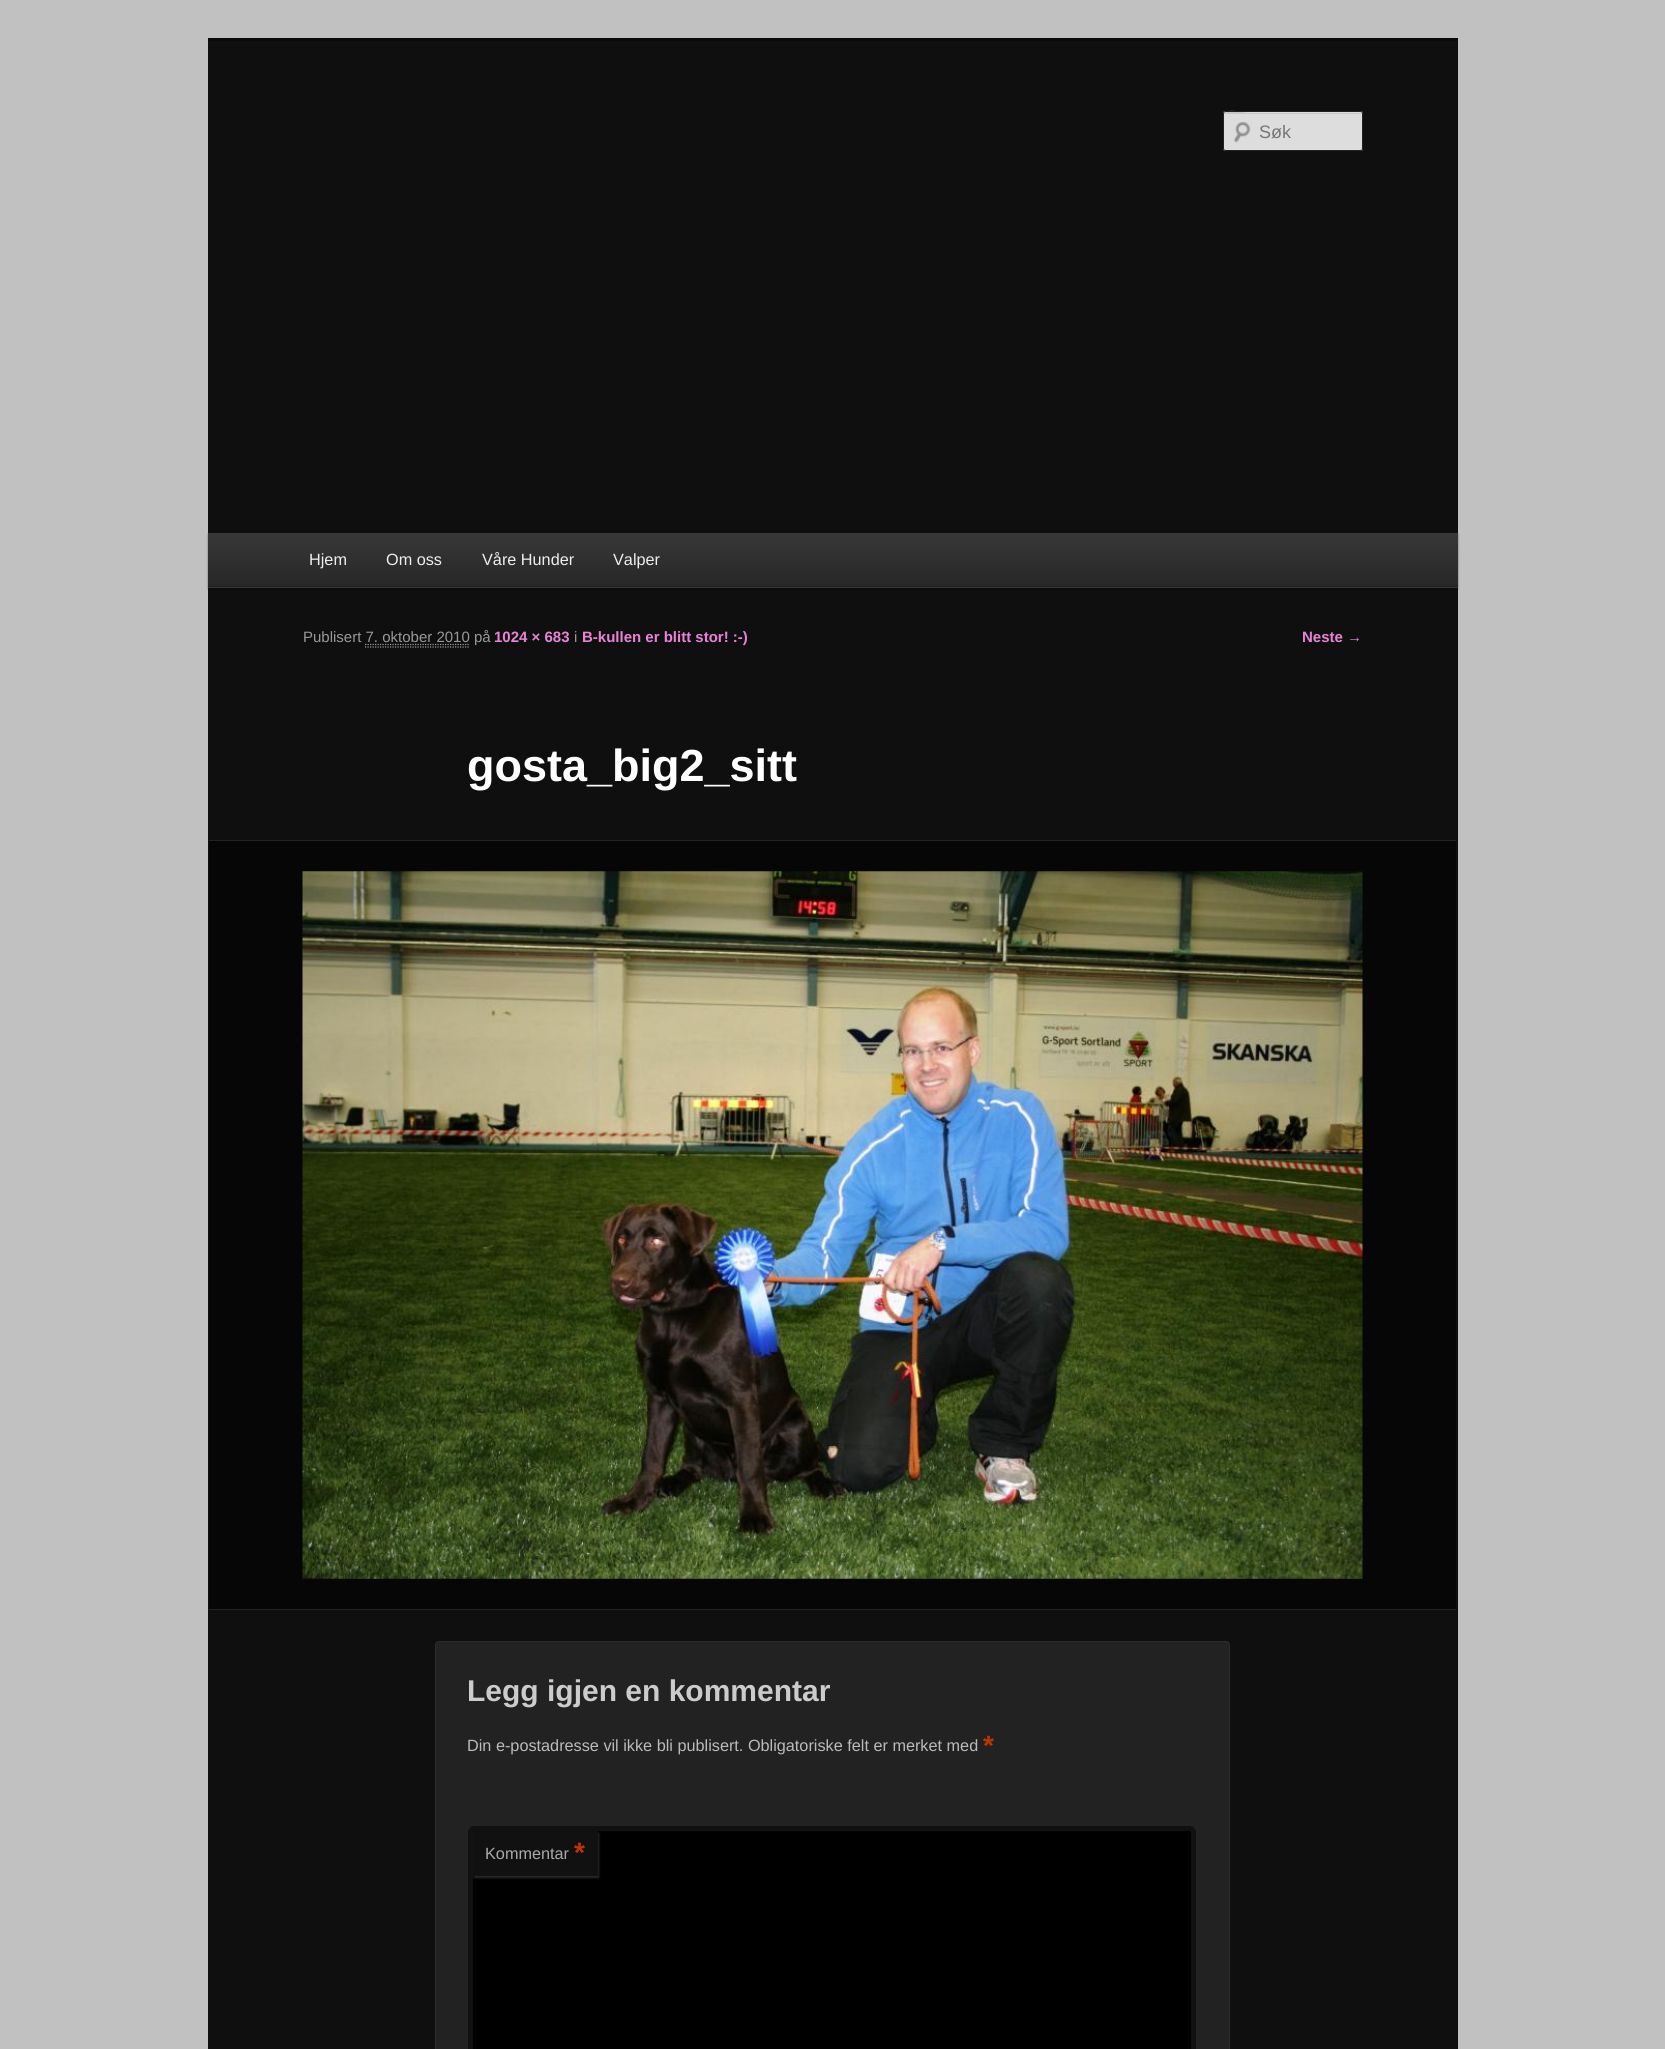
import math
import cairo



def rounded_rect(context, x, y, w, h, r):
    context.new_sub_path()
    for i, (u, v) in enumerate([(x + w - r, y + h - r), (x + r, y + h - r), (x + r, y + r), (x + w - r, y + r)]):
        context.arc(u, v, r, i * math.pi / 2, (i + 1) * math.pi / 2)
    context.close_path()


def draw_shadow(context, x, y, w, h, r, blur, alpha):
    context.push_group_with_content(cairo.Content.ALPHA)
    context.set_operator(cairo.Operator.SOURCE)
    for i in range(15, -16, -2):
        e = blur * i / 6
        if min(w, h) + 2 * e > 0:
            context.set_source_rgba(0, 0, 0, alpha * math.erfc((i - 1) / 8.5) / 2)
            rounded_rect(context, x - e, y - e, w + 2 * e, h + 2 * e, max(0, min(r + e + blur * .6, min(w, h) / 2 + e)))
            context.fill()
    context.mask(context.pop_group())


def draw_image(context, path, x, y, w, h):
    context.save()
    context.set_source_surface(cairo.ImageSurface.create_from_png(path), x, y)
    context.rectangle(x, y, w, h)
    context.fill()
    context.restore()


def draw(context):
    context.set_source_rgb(193 / 255, 193 / 255, 193 / 255)
    context.paint()
    context.set_source_rgb(15 / 255, 15 / 255, 15 / 255)
    context.rectangle(208, 41, 1250, 2008)
    context.fill()
    context.set_source_rgb(10 / 255, 10 / 255, 10 / 255)
    context.rectangle(208, 38, 1250, 3)
    context.fill()
    context.set_source_rgb(221 / 255, 221 / 255, 221 / 255)
    rounded_rect(context, 1223, 111, 140, 40, 2.5)
    context.fill()
    draw_image(context, "images/1.png", 1233, 121, 18, 22)
    context.set_source_rgb(199 / 255, 199 / 255, 199 / 255)
    context.new_path()
    context.move_to(1225, 114)
    context.line_to(1360, 114)
    context.curve_to(1361, 114, 1361, 114, 1361, 115)
    context.line_to(1361, 113)
    context.line_to(1248, 113)
    context.curve_to(1247, 113, 1224, 107, 1224, 115)
    context.curve_to(1224, 114, 1224, 114, 1225, 114)
    context.close_path()
    context.fill()
    rounded_rect(context, 1223.5, 111.5, 139, 39, 2)
    context.set_source_rgb(34 / 255, 34 / 255, 34 / 255)
    context.set_line_width(1)
    context.stroke()
    context.set_source_rgb(0, 0, 0)
    draw_shadow(context, 208, 534, 1250, 55, 0, 1, 0.4)
    gradient = cairo.LinearGradient(833, 532, 833, 586)
    gradient.add_color_stop_rgba(0, 56 / 255, 56 / 255, 56 / 255, 1)
    gradient.add_color_stop_rgba(1, 39 / 255, 39 / 255, 39 / 255, 1)
    context.set_source(gradient)
    context.rectangle(208, 533, 1250, 53)
    context.fill()
    gradient = cairo.LinearGradient(833, 586, 833, 640)
    gradient.add_color_stop_rgba(0, 56 / 255, 56 / 255, 56 / 255, 1)
    gradient.add_color_stop_rgba(1, 39 / 255, 39 / 255, 39 / 255, 1)
    context.set_source(gradient)
    context.rectangle(208, 587, 1250, 1)
    context.fill()
    context.set_source_rgb(34 / 255, 34 / 255, 34 / 255)
    context.rectangle(208, 586, 1250, 1)
    context.fill()
    context.new_path()
    context.move_to(365, 644.5)
    context.line_to(469.5, 644.5)
    context.set_source_rgb(153 / 255, 153 / 255, 153 / 255)
    context.set_line_width(1.2)
    context.set_dash([1.25, 1.25])
    context.stroke()
    context.new_path()
    context.move_to(365, 647)
    context.line_to(469, 647)
    context.stroke()
    context.set_source_rgb(6 / 255, 6 / 255, 6 / 255)
    context.rectangle(209, 841, 1247, 768)
    context.fill()
    context.set_source_rgb(34 / 255, 34 / 255, 34 / 255)
    context.rectangle(209, 840, 1247, 1)
    context.fill()
    context.rectangle(209, 1609, 1247, 1)
    context.fill()
    draw_image(context, "images/2.png", 302, 871, 1061, 708)
    rounded_rect(context, 435.5, 1641.5, 794, 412, 3.5)
    context.fill_preserve()
    context.set_source_rgb(44 / 255, 44 / 255, 44 / 255)
    context.set_line_width(1)
    context.set_dash([])
    context.stroke()
    context.set_source_rgb(0, 0, 0)
    rounded_rect(context, 470.5, 1828.5, 723, 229, 3.5)
    context.fill_preserve()
    context.set_source_rgb(17 / 255, 17 / 255, 17 / 255)
    context.set_line_width(5)
    context.stroke()
    context.set_source_rgb(51 / 255, 51 / 255, 51 / 255)
    draw_shadow(context, 474, 1833, 125, 45, 0, 1, 0.8)
    context.set_source_rgb(17 / 255, 17 / 255, 17 / 255)
    context.rectangle(473, 1831, 125, 45)
    context.fill()
    context.select_font_face("Liberation Sans")
    context.set_font_size(18)
    context.set_source_rgb(117 / 255, 117 / 255, 117 / 255)
    context.move_to(1259, 138)
    context.show_text("Søk")
    context.set_font_size(16.25)
    context.set_source_rgb(238 / 255, 238 / 255, 238 / 255)
    context.move_to(309, 565)
    context.show_text("Hjem")
    context.move_to(386, 565)
    context.show_text("Om oss")
    context.move_to(482, 565)
    context.show_text("Våre Hunder")
    context.move_to(613, 565)
    context.show_text("Valper")
    context.set_font_size(15)
    context.set_source_rgb(153 / 255, 153 / 255, 153 / 255)
    context.move_to(303, 642)
    context.show_text("Publisert 7. oktober 2010 på")
    context.select_font_face("Liberation Sans", cairo.FontSlant.NORMAL, cairo.FontWeight.BOLD)
    context.set_source_rgb(234 / 255, 131 / 255, 215 / 255)
    context.move_to(494, 642)
    context.show_text("1024 × 683")
    context.select_font_face("Liberation Sans")
    context.set_source_rgb(153 / 255, 153 / 255, 153 / 255)
    context.move_to(574, 642)
    context.show_text("i")
    context.select_font_face("Liberation Sans", cairo.FontSlant.NORMAL, cairo.FontWeight.BOLD)
    context.set_source_rgb(234 / 255, 131 / 255, 215 / 255)
    context.move_to(582, 642)
    context.show_text("B-kullen er blitt stor! :-)")
    context.set_font_size(45)
    context.set_source_rgb(1, 1, 1)
    context.move_to(467, 781)
    context.show_text("gosta_big2_sitt")
    context.set_font_size(15)
    context.set_source_rgb(234 / 255, 131 / 255, 215 / 255)
    context.move_to(1302, 642)
    context.show_text("Neste →")
    context.set_font_size(30)
    context.set_source_rgb(204 / 255, 204 / 255, 204 / 255)
    context.move_to(467, 1701)
    context.show_text("Legg igjen en kommentar")
    context.select_font_face("Liberation Sans")
    context.set_font_size(16.25)
    context.set_source_rgb(187 / 255, 187 / 255, 187 / 255)
    context.move_to(467, 1751)
    context.show_text("Din e-postadresse vil ikke bli publisert. Obligatoriske felt er merket med")
    context.select_font_face("Liberation Sans", cairo.FontSlant.NORMAL, cairo.FontWeight.BOLD)
    context.set_font_size(28)
    context.set_source_rgb(189 / 255, 53 / 255, 0)
    context.move_to(983, 1755)
    context.show_text("*")
    context.select_font_face("Liberation Sans")
    context.set_font_size(16.25)
    context.set_source_rgb(170 / 255, 170 / 255, 170 / 255)
    context.move_to(485, 1859)
    context.show_text("Kommentar")
    context.select_font_face("Liberation Sans", cairo.FontSlant.NORMAL, cairo.FontWeight.BOLD)
    context.set_font_size(28)
    context.set_source_rgb(189 / 255, 53 / 255, 0)
    context.move_to(574, 1862)
    context.show_text("*")


surface = cairo.ImageSurface(cairo.Format.RGB24, 1665, 2049)
context = cairo.Context(surface)
options = cairo.FontOptions()
options.set_hint_metrics(cairo.HintMetrics.OFF)
options.set_hint_style(cairo.HintStyle.NONE)
context.set_font_options(options)
context.set_miter_limit(4)
draw(context)
surface.write_to_png("out.png")
